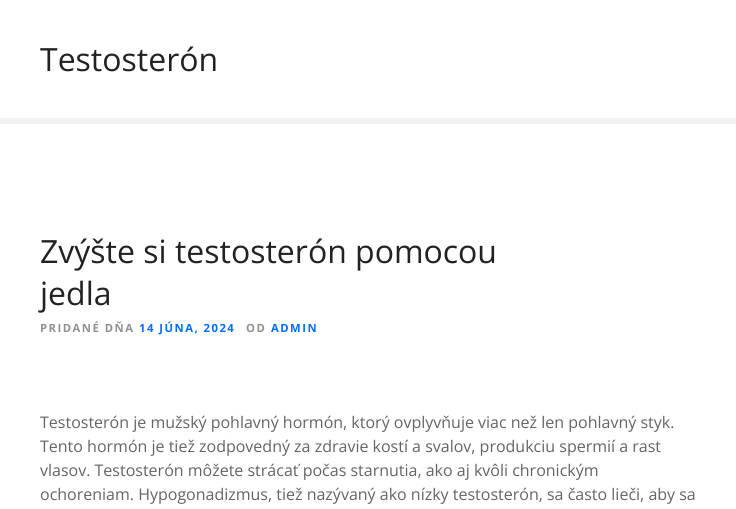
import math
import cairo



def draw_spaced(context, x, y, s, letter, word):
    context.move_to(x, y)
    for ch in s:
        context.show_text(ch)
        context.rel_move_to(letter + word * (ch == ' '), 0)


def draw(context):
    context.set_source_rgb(1, 1, 1)
    context.paint()
    context.set_source_rgb(242 / 255, 242 / 255, 242 / 255)
    context.rectangle(0, 118, 736, 6)
    context.fill()
    context.select_font_face("Open Sans")
    context.set_font_size(32)
    context.set_source_rgb(34 / 255, 34 / 255, 34 / 255)
    context.move_to(40, 71)
    context.show_text("Testosterón")
    context.move_to(40, 263)
    context.show_text("Zvýšte si testosterón pomocou")
    context.move_to(40, 305)
    context.show_text("jedla")
    context.select_font_face("Open Sans", cairo.FontSlant.NORMAL, cairo.FontWeight.BOLD)
    context.set_font_size(11.25)
    context.set_source_rgb(145 / 255, 145 / 255, 145 / 255)
    draw_spaced(context, 40, 332, "PRIDANÉ DŇA", 1.5, 0)
    context.set_source_rgb(1 / 255, 109 / 255, 1)
    draw_spaced(context, 139, 332, "14 JÚNA, 2024", 1.5, 0)
    context.set_source_rgb(145 / 255, 145 / 255, 145 / 255)
    draw_spaced(context, 246, 332, "OD", 1.5, 0)
    context.set_source_rgb(1 / 255, 109 / 255, 1)
    draw_spaced(context, 271, 332, "ADMIN", 1.5, 0)
    context.select_font_face("Open Sans")
    context.set_font_size(16)
    context.set_source_rgb(100 / 255, 100 / 255, 100 / 255)
    context.move_to(40, 428)
    context.show_text("Testosterón je mužský pohlavný hormón, ktorý ovplyvňuje viac než len pohlavný styk.")
    context.move_to(40, 452)
    context.show_text("Tento hormón je tiež zodpovedný za zdravie kostí a svalov, produkciu spermií a rast")
    context.move_to(40, 476)
    context.show_text("vlasov. Testosterón môžete strácať počas starnutia, ako aj kvôli chronickým")
    context.move_to(40, 500)
    context.show_text("ochoreniam. Hypogonadizmus, tiež nazývaný ako nízky testosterón, sa často lieči, aby sa")


surface = cairo.ImageSurface(cairo.Format.RGB24, 736, 509)
context = cairo.Context(surface)
options = cairo.FontOptions()
options.set_hint_metrics(cairo.HintMetrics.OFF)
options.set_hint_style(cairo.HintStyle.NONE)
context.set_font_options(options)
context.set_miter_limit(4)
draw(context)
surface.write_to_png("out.png")
